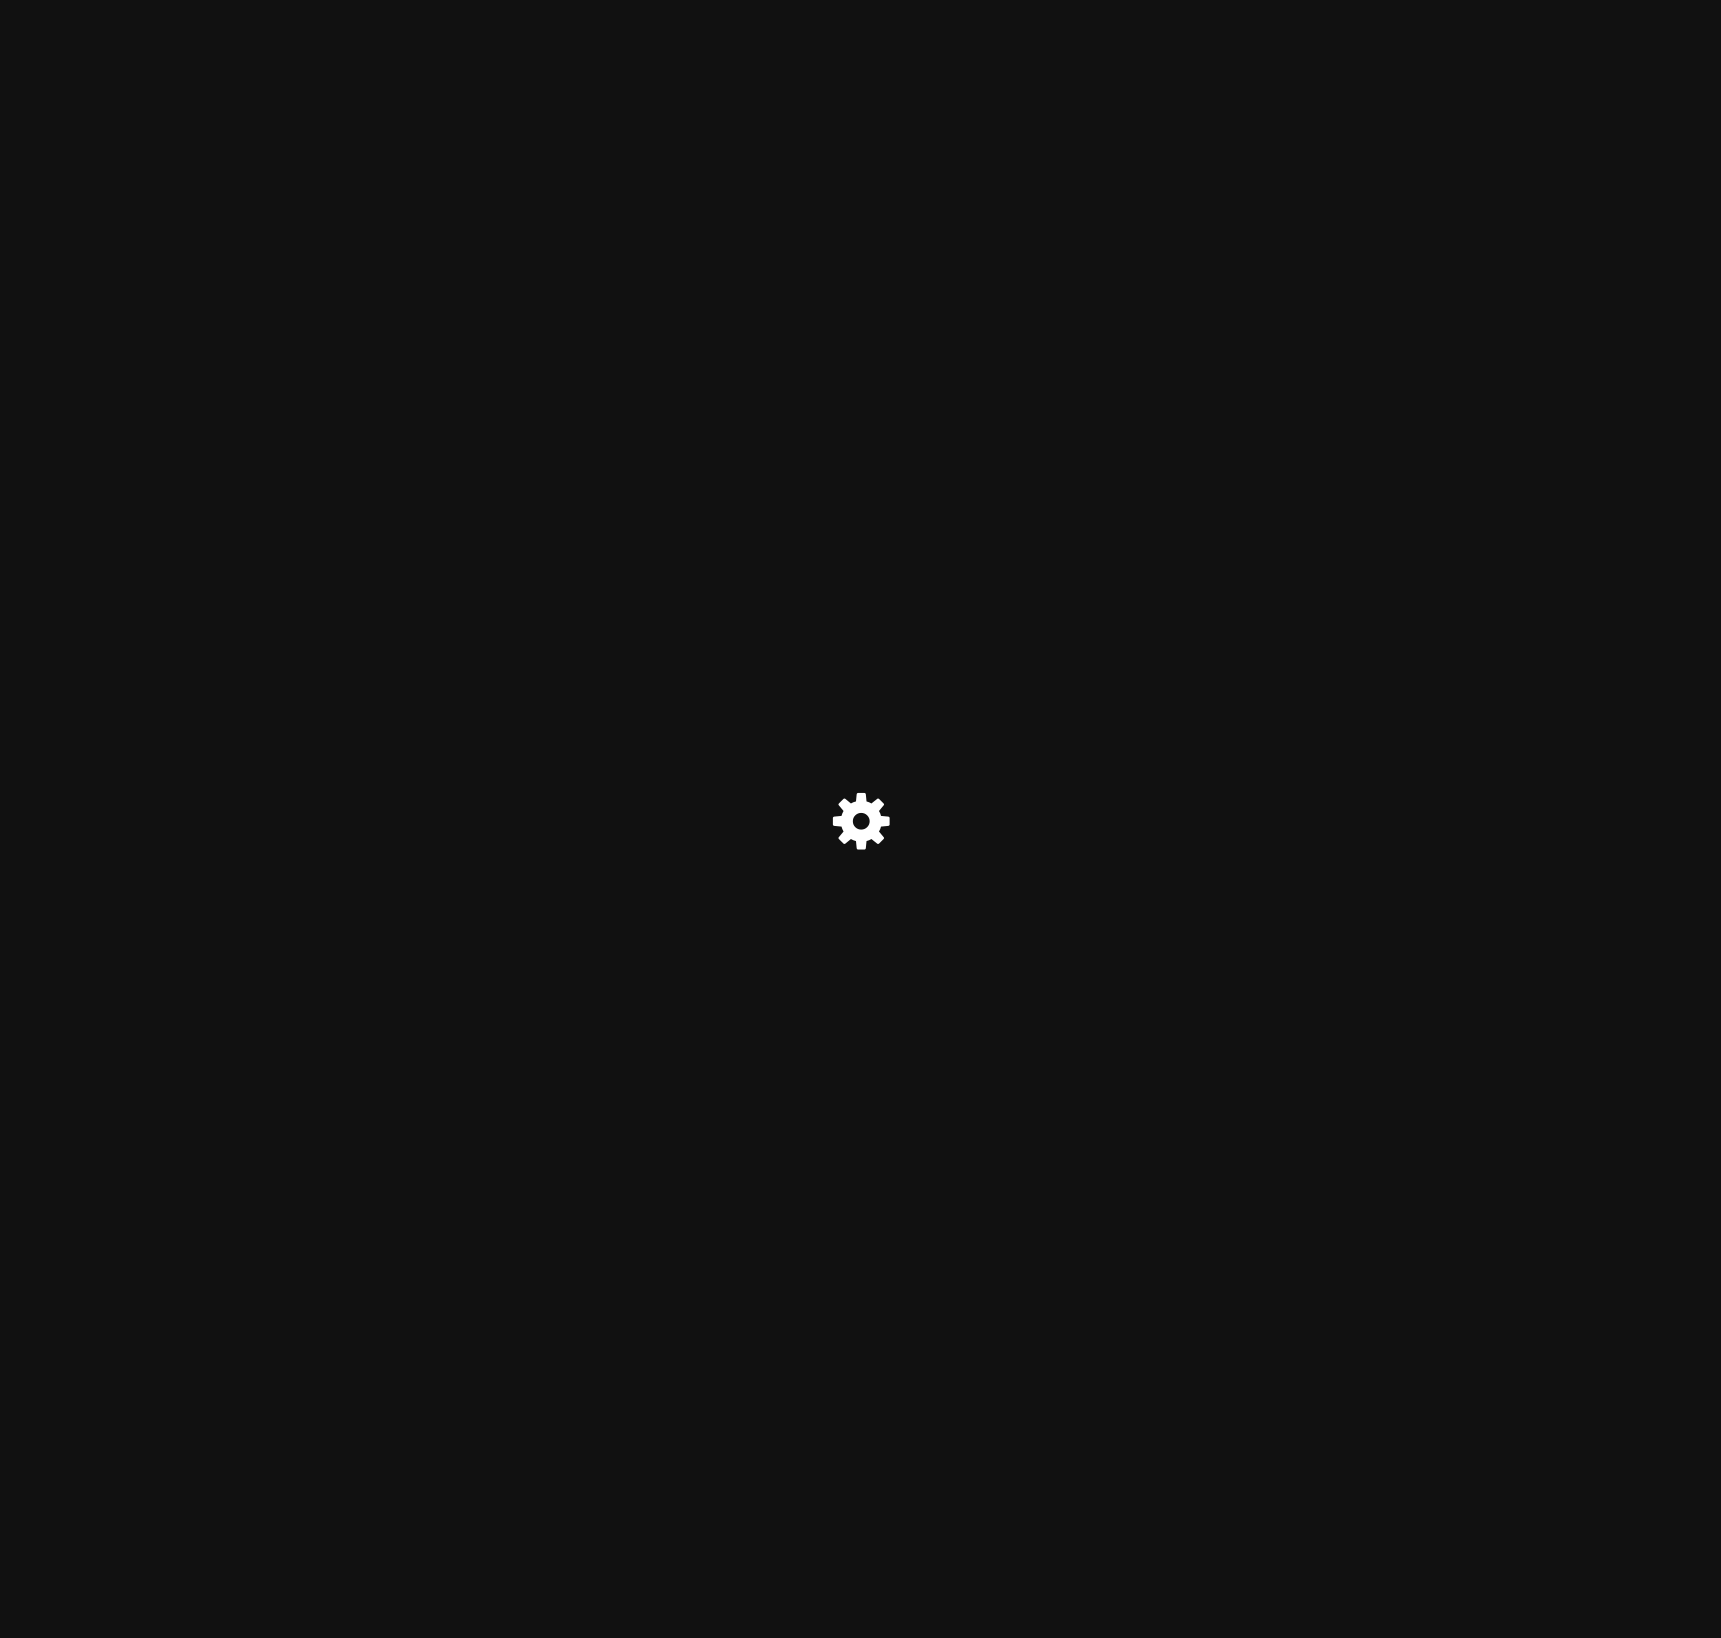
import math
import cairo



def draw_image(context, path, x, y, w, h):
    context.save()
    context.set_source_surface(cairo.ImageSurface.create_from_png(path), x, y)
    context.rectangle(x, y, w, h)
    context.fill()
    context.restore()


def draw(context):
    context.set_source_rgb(17 / 255, 17 / 255, 17 / 255)
    context.paint()
    draw_image(context, "images/1.png", 832, 792, 58, 58)


surface = cairo.ImageSurface(cairo.Format.RGB24, 1721, 1638)
context = cairo.Context(surface)
options = cairo.FontOptions()
options.set_hint_metrics(cairo.HintMetrics.OFF)
options.set_hint_style(cairo.HintStyle.NONE)
context.set_font_options(options)
context.set_miter_limit(4)
draw(context)
surface.write_to_png("out.png")
